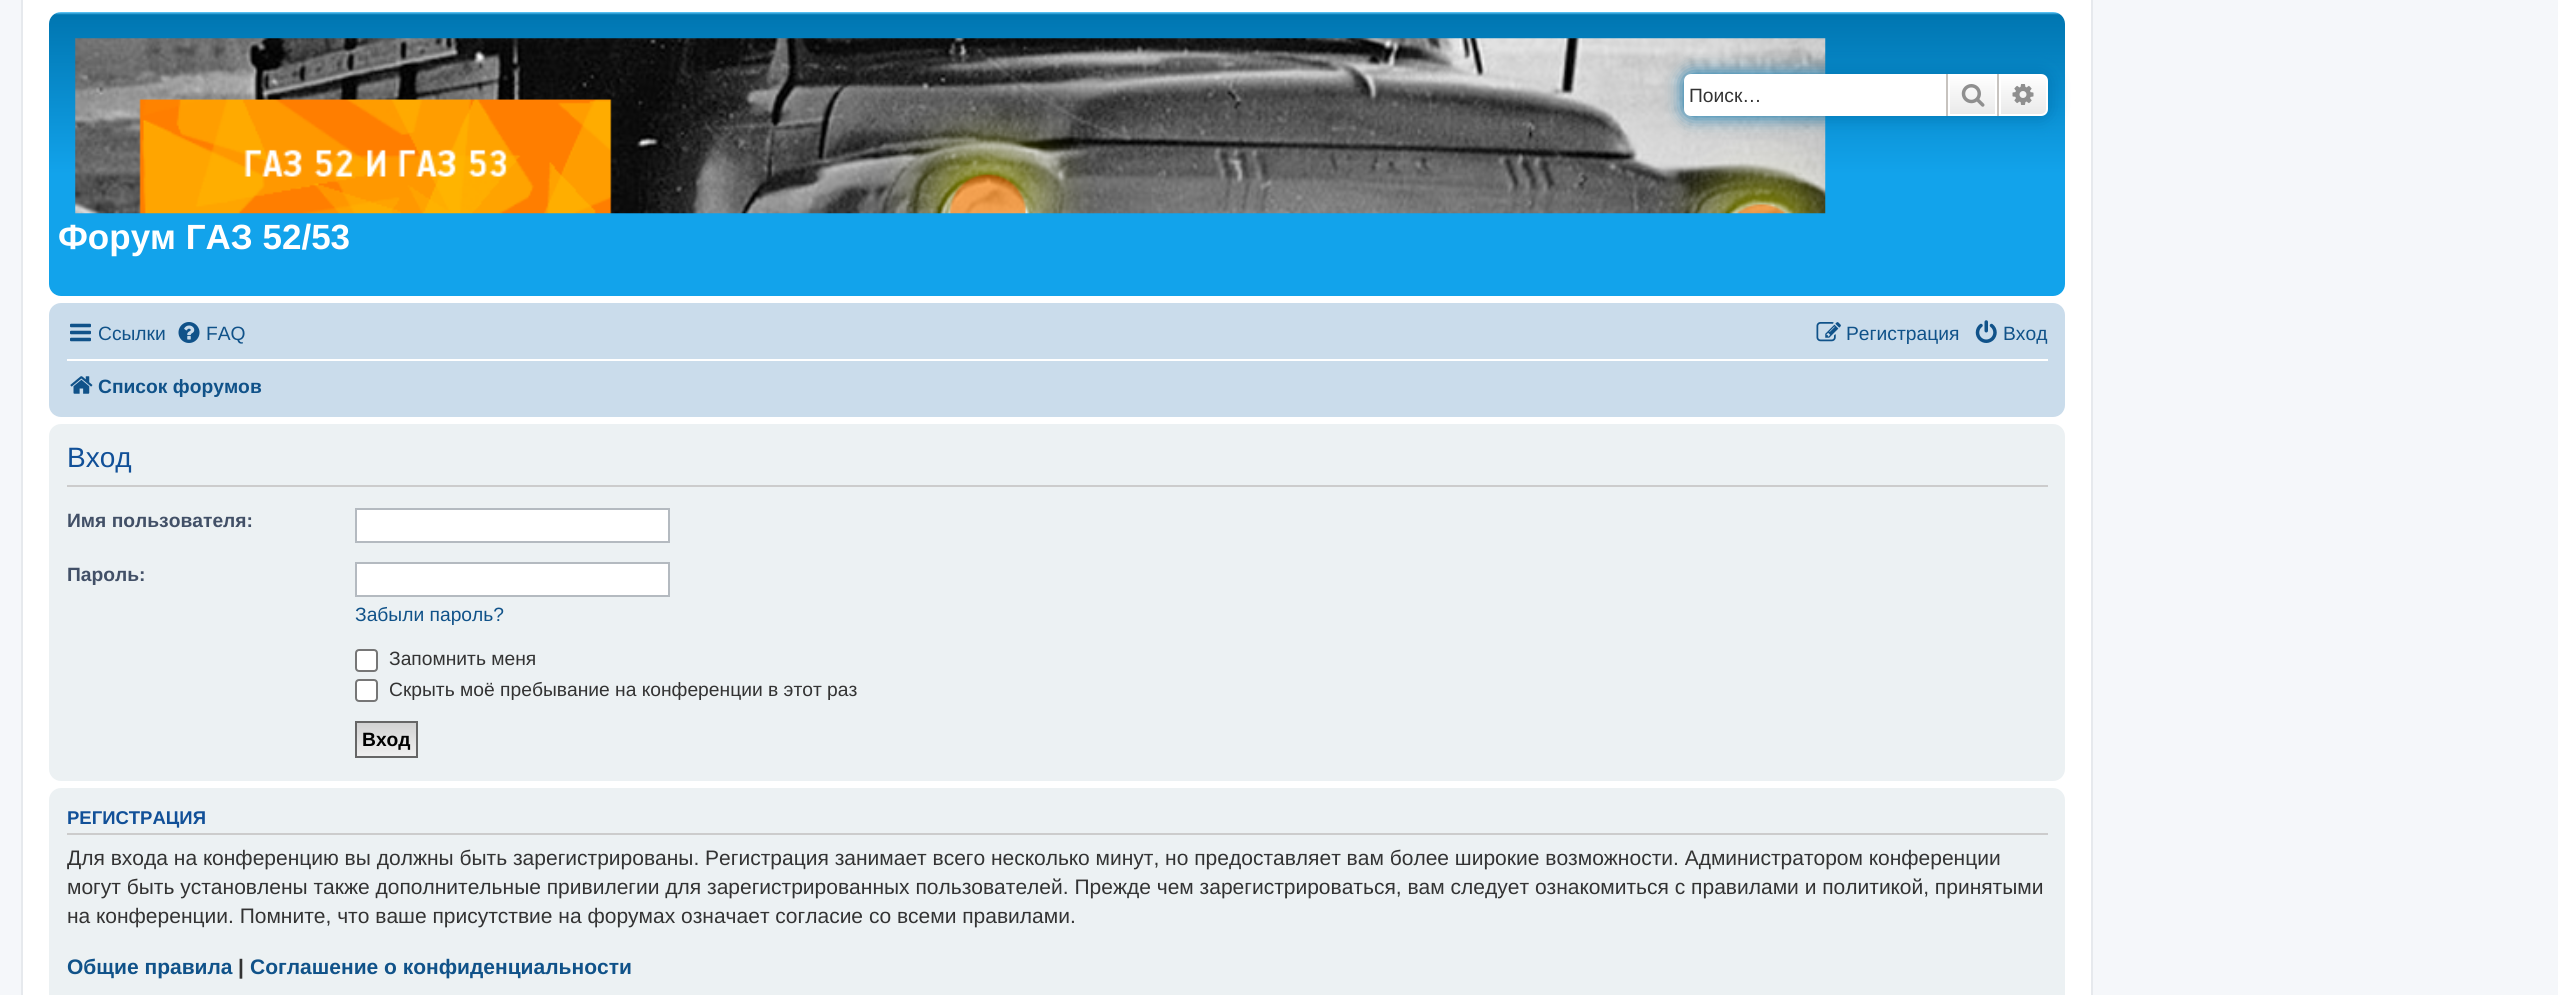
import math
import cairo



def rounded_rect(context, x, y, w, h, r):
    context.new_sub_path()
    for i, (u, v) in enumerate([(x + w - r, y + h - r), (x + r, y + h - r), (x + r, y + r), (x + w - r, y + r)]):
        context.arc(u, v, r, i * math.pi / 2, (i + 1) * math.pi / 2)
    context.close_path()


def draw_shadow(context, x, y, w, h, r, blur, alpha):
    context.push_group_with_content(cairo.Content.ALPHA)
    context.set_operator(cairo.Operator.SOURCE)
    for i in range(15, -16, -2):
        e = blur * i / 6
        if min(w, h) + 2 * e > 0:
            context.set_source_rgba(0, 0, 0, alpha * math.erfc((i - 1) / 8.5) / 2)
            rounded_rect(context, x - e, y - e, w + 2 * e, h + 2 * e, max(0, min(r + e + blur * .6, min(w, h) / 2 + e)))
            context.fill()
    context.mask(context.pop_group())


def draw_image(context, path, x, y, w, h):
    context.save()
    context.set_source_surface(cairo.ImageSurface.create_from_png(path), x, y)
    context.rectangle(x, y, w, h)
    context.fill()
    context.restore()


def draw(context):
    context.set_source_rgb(245 / 255, 247 / 255, 250 / 255)
    context.paint()
    context.set_source_rgb(1, 1, 1)
    context.rectangle(22, -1, 2070, 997)
    context.fill_preserve()
    context.set_source_rgb(230 / 255, 233 / 255, 237 / 255)
    context.stroke()
    gradient = cairo.LinearGradient(1057, 12, 1057, 296)
    gradient.add_color_stop_rgba(0, 106 / 255, 206 / 255, 1, 1)
    gradient.add_color_stop_rgba(0.01, 0, 118 / 255, 177 / 255, 1)
    gradient.add_color_stop_rgba(0.57, 18 / 255, 163 / 255, 235 / 255, 1)
    gradient.add_color_stop_rgba(1, 18 / 255, 163 / 255, 235 / 255, 1)
    context.set_source(gradient)
    rounded_rect(context, 49, 12, 2016, 284, 12)
    context.fill()
    draw_image(context, "images/3.png", 75, 38, 1751, 176)
    context.set_source_rgb(0, 117 / 255, 176 / 255)
    draw_shadow(context, 1684, 74, 364, 42, 7, 9, 1)
    context.set_source_rgb(1, 1, 1)
    context.new_path()
    context.move_to(1691, 74)
    context.line_to(1946, 74)
    context.line_to(1946, 116)
    context.line_to(1691, 116)
    context.curve_to(1687, 116, 1684, 113, 1684, 109)
    context.line_to(1684, 81)
    context.curve_to(1684, 77, 1687, 74, 1691, 74)
    context.close_path()
    context.fill()
    gradient = cairo.LinearGradient(1972, 74, 1972, 116)
    gradient.add_color_stop_rgba(0, 1, 1, 1, 1)
    gradient.add_color_stop_rgba(1, 233 / 255, 233 / 255, 233 / 255, 1)
    context.set_source(gradient)
    context.rectangle(1950, 76, 45, 38)
    context.fill()
    context.rectangle(1949, 75, 47, 40)
    context.set_source_rgb(1, 1, 1)
    context.stroke()
    context.set_source_rgb(199 / 255, 195 / 255, 191 / 255)
    context.rectangle(1997, 74, 2, 42)
    context.fill()
    context.rectangle(1946, 74, 2, 42)
    context.fill()
    draw_image(context, "images/1.png", 1961, 84, 24, 23)
    gradient = cairo.LinearGradient(2023, 74, 2023, 116)
    gradient.add_color_stop_rgba(0, 1, 1, 1, 1)
    gradient.add_color_stop_rgba(1, 233 / 255, 233 / 255, 233 / 255, 1)
    context.set_source(gradient)
    context.new_path()
    context.move_to(2000, 75)
    context.line_to(2041, 75)
    context.curve_to(2044.5, 75, 2047, 77.5, 2047, 81)
    context.line_to(2047, 109)
    context.curve_to(2047, 112.5, 2044.5, 115, 2041, 115)
    context.line_to(2000, 115)
    context.close_path()
    context.fill_preserve()
    context.set_source_rgb(1, 1, 1)
    context.stroke()
    draw_image(context, "images/2.png", 2012, 84, 22, 21)
    context.set_source_rgb(202 / 255, 220 / 255, 235 / 255)
    rounded_rect(context, 49, 303, 2016, 114, 12)
    context.fill()
    draw_image(context, "images/4.png", 70, 323, 21, 19)
    draw_image(context, "images/5.png", 178, 322, 22, 21)
    draw_image(context, "images/6.png", 1816, 322, 25, 20)
    draw_image(context, "images/7.png", 1975, 320, 22, 23)
    context.set_source_rgb(1, 1, 1)
    context.rectangle(67, 359, 1981, 2)
    context.fill()
    draw_image(context, "images/8.png", 70, 376, 23, 18)
    context.set_source_rgb(236 / 255, 241 / 255, 243 / 255)
    rounded_rect(context, 49, 424, 2016, 357, 12)
    context.fill()
    context.set_source_rgb(204 / 255, 204 / 255, 204 / 255)
    context.rectangle(67, 485, 1981, 2)
    context.fill()
    context.set_source_rgb(1, 1, 1)
    context.rectangle(356, 509, 313, 33)
    context.fill_preserve()
    context.set_source_rgb(180 / 255, 186 / 255, 192 / 255)
    context.stroke()
    context.set_source_rgb(1, 1, 1)
    context.rectangle(356, 563, 313, 33)
    context.fill_preserve()
    context.set_source_rgb(180 / 255, 186 / 255, 192 / 255)
    context.stroke()
    context.set_source_rgb(1, 1, 1)
    rounded_rect(context, 356, 650, 21, 21, 3)
    context.fill_preserve()
    context.set_source_rgb(118 / 255, 118 / 255, 118 / 255)
    context.stroke()
    context.set_source_rgb(1, 1, 1)
    rounded_rect(context, 356, 680, 21, 21, 3)
    context.fill_preserve()
    context.set_source_rgb(118 / 255, 118 / 255, 118 / 255)
    context.stroke()
    gradient = cairo.LinearGradient(387, 723, 387, 756)
    gradient.add_color_stop_rgba(0, 210 / 255, 210 / 255, 210 / 255, 1)
    gradient.add_color_stop_rgba(1, 239 / 255, 239 / 255, 239 / 255, 1)
    context.set_source(gradient)
    context.rectangle(357, 723, 59, 33)
    context.fill()
    context.rectangle(356, 722, 61, 35)
    context.set_source_rgb(102 / 255, 102 / 255, 102 / 255)
    context.stroke()
    context.set_source_rgb(236 / 255, 241 / 255, 243 / 255)
    rounded_rect(context, 49, 788, 2016, 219, 12)
    context.fill()
    context.set_source_rgb(204 / 255, 204 / 255, 204 / 255)
    context.rectangle(67, 833, 1981, 2)
    context.fill()
    context.select_font_face("Liberation Sans")
    context.set_font_size(19.25)
    context.set_source_rgb(51 / 255, 51 / 255, 51 / 255)
    context.move_to(1689, 102)
    context.show_text("Поиск…")
    context.select_font_face("Liberation Sans", cairo.FontSlant.NORMAL, cairo.FontWeight.BOLD)
    context.set_font_size(35)
    context.set_source_rgb(1, 1, 1)
    context.move_to(58, 249)
    context.show_text("Форум ГАЗ 52/53")
    context.select_font_face("Liberation Sans")
    context.set_font_size(19.25)
    context.set_source_rgb(16 / 255, 82 / 255, 137 / 255)
    context.move_to(98, 340)
    context.show_text("Ссылки")
    context.move_to(206, 340)
    context.show_text("FAQ")
    context.move_to(1846, 340)
    context.show_text("Регистрация")
    context.move_to(2003, 340)
    context.show_text("Вход")
    context.select_font_face("Liberation Sans", cairo.FontSlant.NORMAL, cairo.FontWeight.BOLD)
    context.move_to(98, 393)
    context.show_text("Список форумов")
    context.select_font_face("Liberation Sans")
    context.set_font_size(28)
    context.set_source_rgb(17 / 255, 80 / 255, 152 / 255)
    context.move_to(67, 467)
    context.show_text("Вход")
    context.select_font_face("Liberation Sans", cairo.FontSlant.NORMAL, cairo.FontWeight.BOLD)
    context.set_font_size(19.25)
    context.set_source_rgb(66 / 255, 80 / 255, 103 / 255)
    context.move_to(67, 527)
    context.show_text("Имя пользователя:")
    context.move_to(67, 581)
    context.show_text("Пароль:")
    context.select_font_face("Liberation Sans")
    context.set_source_rgb(16 / 255, 82 / 255, 137 / 255)
    context.move_to(355, 621)
    context.show_text("Забыли пароль?")
    context.set_source_rgb(51 / 255, 51 / 255, 51 / 255)
    context.move_to(389, 665)
    context.show_text("Запомнить меня")
    context.move_to(389, 696)
    context.show_text("Скрыть моё пребывание на конференции в этот раз")
    context.select_font_face("Liberation Sans", cairo.FontSlant.NORMAL, cairo.FontWeight.BOLD)
    context.set_source_rgb(0, 0, 0)
    context.move_to(362, 746)
    context.show_text("Вход")
    context.set_font_size(18.5)
    context.set_source_rgb(17 / 255, 80 / 255, 152 / 255)
    context.move_to(67, 824)
    context.show_text("РЕГИСТРАЦИЯ")
    context.save()
    context.rectangle(67, 796, 1981, 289)
    context.clip()
    context.select_font_face("Liberation Sans")
    context.set_font_size(21)
    context.set_source_rgb(51 / 255, 51 / 255, 51 / 255)
    context.move_to(67, 865)
    context.show_text("Для входа на конференцию вы должны быть зарегистрированы. Регистрация занимает всего несколько минут, но предоставляет вам более широкие возможности. Администратором конференции")
    context.restore()
    context.select_font_face("Liberation Sans")
    context.set_font_size(21)
    context.set_source_rgb(51 / 255, 51 / 255, 51 / 255)
    context.move_to(67, 894)
    context.show_text("могут быть установлены также дополнительные привилегии для зарегистрированных пользователей. Прежде чем зарегистрироваться, вам следует ознакомиться с правилами и политикой, принятыми")
    context.move_to(67, 923)
    context.show_text("на конференции. Помните, что ваше присутствие на форумах означает согласие со всеми правилами.")
    context.select_font_face("Liberation Sans", cairo.FontSlant.NORMAL, cairo.FontWeight.BOLD)
    context.set_source_rgb(16 / 255, 82 / 255, 137 / 255)
    context.move_to(67, 974)
    context.show_text("Общие правила")
    context.set_source_rgb(51 / 255, 51 / 255, 51 / 255)
    context.move_to(238, 974)
    context.show_text("|")
    context.set_source_rgb(16 / 255, 82 / 255, 137 / 255)
    context.move_to(250, 974)
    context.show_text("Соглашение о конфиденциальности")


surface = cairo.ImageSurface(cairo.Format.RGB24, 2558, 995)
context = cairo.Context(surface)
options = cairo.FontOptions()
options.set_hint_metrics(cairo.HintMetrics.OFF)
options.set_hint_style(cairo.HintStyle.NONE)
context.set_font_options(options)
context.set_miter_limit(4)
draw(context)
surface.write_to_png("out.png")
